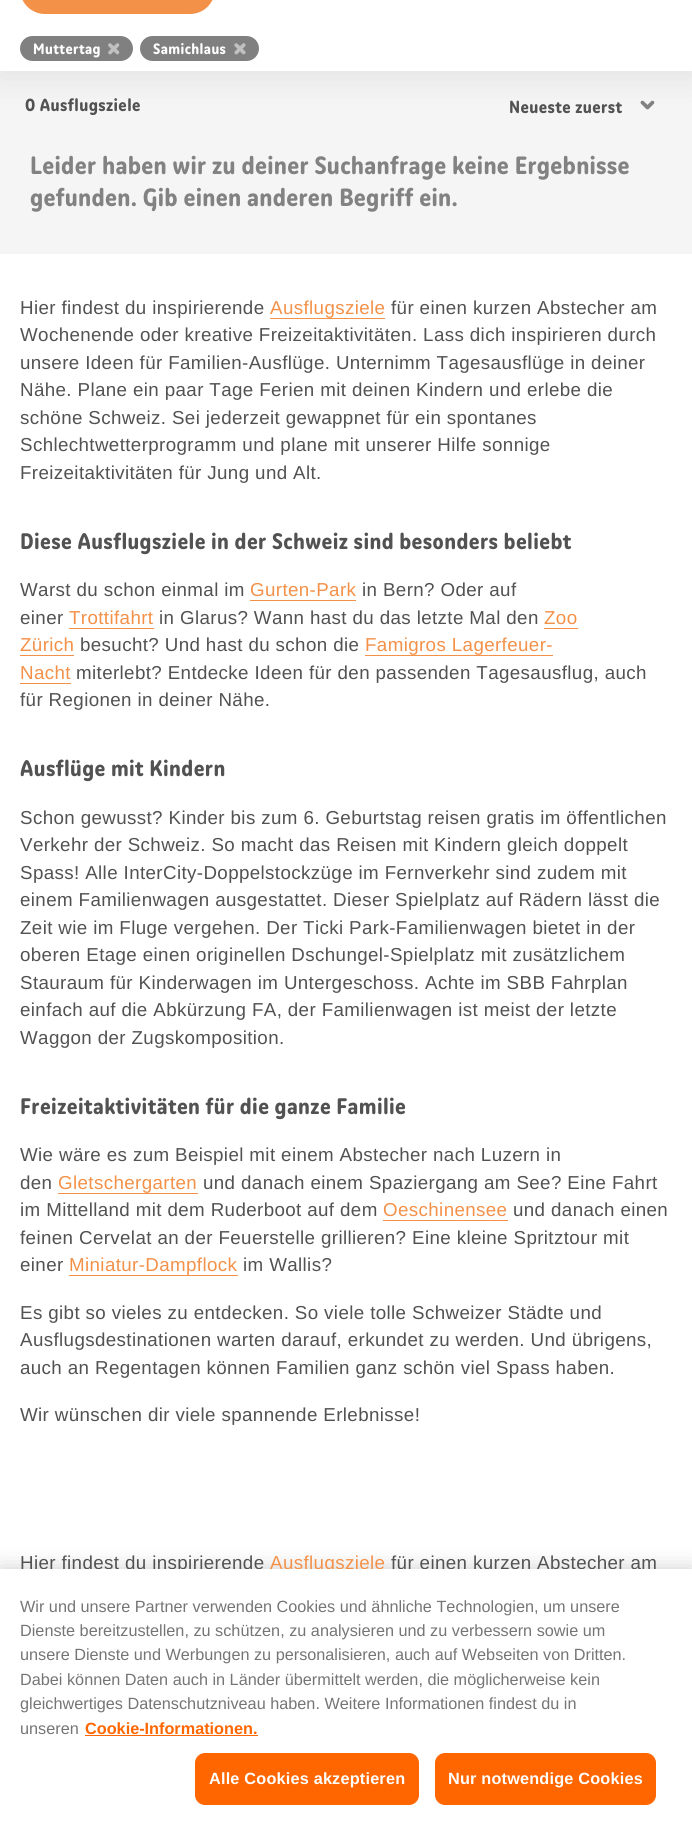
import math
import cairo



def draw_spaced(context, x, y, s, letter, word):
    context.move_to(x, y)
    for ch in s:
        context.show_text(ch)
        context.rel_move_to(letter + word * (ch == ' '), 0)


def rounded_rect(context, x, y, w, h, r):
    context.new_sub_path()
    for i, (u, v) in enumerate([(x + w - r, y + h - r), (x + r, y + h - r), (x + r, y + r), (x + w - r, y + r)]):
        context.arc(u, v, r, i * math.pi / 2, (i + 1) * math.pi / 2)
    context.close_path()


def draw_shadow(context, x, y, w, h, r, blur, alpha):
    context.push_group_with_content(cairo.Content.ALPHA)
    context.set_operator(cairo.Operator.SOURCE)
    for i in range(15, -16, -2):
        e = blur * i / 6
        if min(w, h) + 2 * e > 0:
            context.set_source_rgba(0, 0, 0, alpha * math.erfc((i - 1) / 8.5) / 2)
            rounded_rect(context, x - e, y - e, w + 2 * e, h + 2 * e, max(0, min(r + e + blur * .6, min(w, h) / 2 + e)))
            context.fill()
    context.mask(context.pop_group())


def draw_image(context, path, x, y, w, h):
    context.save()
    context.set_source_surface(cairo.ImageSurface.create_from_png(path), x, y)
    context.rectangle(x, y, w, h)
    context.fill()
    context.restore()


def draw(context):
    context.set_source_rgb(1, 1, 1)
    context.paint()
    context.set_source_rgb(245 / 255, 245 / 255, 245 / 255)
    context.rectangle(0, 71, 692, 183)
    context.fill()
    context.set_source_rgb(0, 0, 0)
    draw_shadow(context, 0, -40, 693, 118, 0, 17.5, 0.08)
    context.set_source_rgb(1, 1, 1)
    context.rectangle(0, 0, 692, 71)
    context.fill()
    context.set_source_rgb(243 / 255, 145 / 255, 73 / 255)
    rounded_rect(context, 20, -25, 195, 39, 25)
    context.fill()
    context.set_source_rgb(128 / 255, 128 / 255, 128 / 255)
    rounded_rect(context, 20, 36, 113, 25, 12.5)
    context.fill()
    draw_image(context, "images/1.png", 108, 43, 12, 12)
    rounded_rect(context, 140, 36, 119, 25, 12.5)
    context.fill()
    draw_image(context, "images/2.png", 234, 43, 12, 12)
    draw_image(context, "images/3.png", 640, 100, 15, 10)
    context.set_source_rgb(243 / 255, 145 / 255, 73 / 255)
    context.rectangle(270, 318, 115, 1)
    context.fill()
    context.rectangle(250, 600, 106, 1)
    context.fill()
    context.rectangle(69, 628, 85, 1)
    context.fill()
    context.rectangle(544, 628, 34, 1)
    context.fill()
    context.rectangle(20, 655, 54, 1)
    context.fill()
    context.rectangle(365, 655, 188, 1)
    context.fill()
    context.rectangle(20, 683, 51, 1)
    context.fill()
    context.rectangle(58, 1193, 140, 1)
    context.fill()
    context.rectangle(383, 1220, 125, 1)
    context.fill()
    context.rectangle(69, 1275, 169, 1)
    context.fill()
    context.set_source_rgb(0, 0, 0)
    draw_shadow(context, 0, 1569, 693, 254, 0, 11, 0.2)
    context.select_font_face("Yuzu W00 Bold", cairo.FontSlant.NORMAL, cairo.FontWeight.BOLD)
    context.set_font_size(15)
    context.set_source_rgb(1, 1, 1)
    draw_spaced(context, 33, 54, "Muttertag", 0.38, 0)
    draw_spaced(context, 153, 54, "Samichlaus", 0.38, 0)
    context.set_font_size(17.5)
    context.set_source_rgb(82 / 255, 82 / 255, 82 / 255)
    draw_spaced(context, 25, 111, "0 Ausflugsziele", 0.38, 0)
    draw_spaced(context, 509, 113, "Neueste zuerst", 0.38, 0)
    context.set_font_size(25)
    context.set_source_rgb(130 / 255, 130 / 255, 130 / 255)
    draw_spaced(context, 30, 174, "Leider haben wir zu deiner Suchanfrage keine Ergebnisse", 0.25, 0)
    draw_spaced(context, 30, 206, "gefunden. Gib einen anderen Begriff ein.", 0.25, 0)
    context.select_font_face("Liberation Sans")
    context.set_font_size(18.75)
    context.set_source_rgb(82 / 255, 82 / 255, 82 / 255)
    draw_spaced(context, 20, 314, "Hier findest du inspirierende", 0.38, 0)
    context.set_source_rgb(243 / 255, 145 / 255, 73 / 255)
    draw_spaced(context, 270, 314, "Ausflugsziele", 0.38, 0)
    context.set_source_rgb(82 / 255, 82 / 255, 82 / 255)
    draw_spaced(context, 391, 314, "für einen kurzen Abstecher am", 0.38, 0)
    draw_spaced(context, 20, 341, "Wochenende oder kreative Freizeitaktivitäten. Lass dich inspirieren durch", 0.38, 0)
    draw_spaced(context, 20, 369, "unsere Ideen für Familien-Ausflüge. Unternimm Tagesausflüge in deiner", 0.38, 0)
    draw_spaced(context, 20, 396, "Nähe. Plane ein paar Tage Ferien mit deinen Kindern und erlebe die", 0.38, 0)
    draw_spaced(context, 20, 424, "schöne Schweiz. Sei jederzeit gewappnet für ein spontanes", 0.38, 0)
    draw_spaced(context, 20, 451, "Schlechtwetterprogramm und plane mit unserer Hilfe sonnige", 0.38, 0)
    draw_spaced(context, 20, 479, "Freizeitaktivitäten für Jung und Alt.", 0.38, 0)
    context.select_font_face("Yuzu W00 Bold", cairo.FontSlant.NORMAL, cairo.FontWeight.BOLD)
    context.set_font_size(22.5)
    draw_spaced(context, 20, 549, "Diese Ausflugsziele in der Schweiz sind besonders beliebt", 0.38, 0)
    context.select_font_face("Liberation Sans")
    context.set_font_size(18.75)
    draw_spaced(context, 20, 596, "Warst du schon einmal im", 0.38, 0)
    context.set_source_rgb(243 / 255, 145 / 255, 73 / 255)
    draw_spaced(context, 250, 596, "Gurten-Park", 0.38, 0)
    context.set_source_rgb(82 / 255, 82 / 255, 82 / 255)
    draw_spaced(context, 362, 596, "in Bern? Oder auf", 0.38, 0)
    draw_spaced(context, 20, 624, "einer", 0.38, 0)
    context.set_source_rgb(243 / 255, 145 / 255, 73 / 255)
    draw_spaced(context, 69, 624, "Trottifahrt", 0.38, 0)
    context.set_source_rgb(82 / 255, 82 / 255, 82 / 255)
    draw_spaced(context, 159, 624, "in Glarus? Wann hast du das letzte Mal den", 0.38, 0)
    context.set_source_rgb(243 / 255, 145 / 255, 73 / 255)
    draw_spaced(context, 544, 624, "Zoo", 0.38, 0)
    draw_spaced(context, 20, 651, "Zürich", 0.38, 0)
    context.set_source_rgb(82 / 255, 82 / 255, 82 / 255)
    draw_spaced(context, 80, 651, "besucht? Und hast du schon die", 0.38, 0)
    context.set_source_rgb(243 / 255, 145 / 255, 73 / 255)
    draw_spaced(context, 365, 651, "Famigros Lagerfeuer-", 0.38, 0)
    draw_spaced(context, 20, 679, "Nacht", 0.38, 0)
    context.set_source_rgb(82 / 255, 82 / 255, 82 / 255)
    draw_spaced(context, 76, 679, "miterlebt? Entdecke Ideen für den passenden Tagesausflug, auch", 0.38, 0)
    draw_spaced(context, 20, 706, "für Regionen in deiner Nähe.", 0.38, 0)
    context.select_font_face("Yuzu W00 Bold", cairo.FontSlant.NORMAL, cairo.FontWeight.BOLD)
    context.set_font_size(22.5)
    draw_spaced(context, 20, 776, "Ausflüge mit Kindern", 0.38, 0)
    context.select_font_face("Liberation Sans")
    context.set_font_size(18.75)
    draw_spaced(context, 20, 824, "Schon gewusst? Kinder bis zum 6. Geburtstag reisen gratis im öffentlichen", 0.38, 0)
    draw_spaced(context, 20, 851, "Verkehr der Schweiz. So macht das Reisen mit Kindern gleich doppelt", 0.38, 0)
    draw_spaced(context, 20, 879, "Spass! Alle InterCity-Doppelstockzüge im Fernverkehr sind zudem mit", 0.38, 0)
    draw_spaced(context, 20, 906, "einem Familienwagen ausgestattet. Dieser Spielplatz auf Rädern lässt die", 0.38, 0)
    draw_spaced(context, 20, 934, "Zeit wie im Fluge vergehen. Der Ticki Park-Familienwagen bietet in der", 0.38, 0)
    draw_spaced(context, 20, 961, "oberen Etage einen originellen Dschungel-Spielplatz mit zusätzlichem", 0.38, 0)
    draw_spaced(context, 20, 989, "Stauraum für Kinderwagen im Untergeschoss. Achte im SBB Fahrplan", 0.38, 0)
    draw_spaced(context, 20, 1016, "einfach auf die Abkürzung FA, der Familienwagen ist meist der letzte", 0.38, 0)
    draw_spaced(context, 20, 1044, "Waggon der Zugskomposition.", 0.38, 0)
    context.select_font_face("Yuzu W00 Bold", cairo.FontSlant.NORMAL, cairo.FontWeight.BOLD)
    context.set_font_size(22.5)
    draw_spaced(context, 20, 1114, "Freizeitaktivitäten für die ganze Familie", 0.38, 0)
    context.select_font_face("Liberation Sans")
    context.set_font_size(18.75)
    draw_spaced(context, 20, 1161, "Wie wäre es zum Beispiel mit einem Abstecher nach Luzern in", 0.38, 0)
    draw_spaced(context, 20, 1189, "den", 0.38, 0)
    context.set_source_rgb(243 / 255, 145 / 255, 73 / 255)
    draw_spaced(context, 58, 1189, "Gletschergarten", 0.38, 0)
    context.set_source_rgb(82 / 255, 82 / 255, 82 / 255)
    draw_spaced(context, 203, 1189, "und danach einem Spaziergang am See? Eine Fahrt", 0.38, 0)
    draw_spaced(context, 20, 1216, "im Mittelland mit dem Ruderboot auf dem", 0.38, 0)
    context.set_source_rgb(243 / 255, 145 / 255, 73 / 255)
    draw_spaced(context, 383, 1216, "Oeschinensee", 0.38, 0)
    context.set_source_rgb(82 / 255, 82 / 255, 82 / 255)
    draw_spaced(context, 513, 1216, "und danach einen", 0.38, 0)
    draw_spaced(context, 20, 1244, "feinen Cervelat an der Feuerstelle grillieren? Eine kleine Spritztour mit", 0.38, 0)
    draw_spaced(context, 20, 1271, "einer", 0.38, 0)
    context.set_source_rgb(243 / 255, 145 / 255, 73 / 255)
    draw_spaced(context, 69, 1271, "Miniatur-Dampflock", 0.38, 0)
    context.set_source_rgb(82 / 255, 82 / 255, 82 / 255)
    draw_spaced(context, 243, 1271, "im Wallis?", 0.38, 0)
    draw_spaced(context, 20, 1319, "Es gibt so vieles zu entdecken. So viele tolle Schweizer Städte und", 0.38, 0)
    draw_spaced(context, 20, 1346, "Ausflugsdestinationen warten darauf, erkundet zu werden. Und übrigens,", 0.38, 0)
    draw_spaced(context, 20, 1374, "auch an Regentagen können Familien ganz schön viel Spass haben.", 0.38, 0)
    draw_spaced(context, 20, 1421, "Wir wünschen dir viele spannende Erlebnisse!", 0.38, 0)
    draw_spaced(context, 20, 1569, "Hier findest du inspirierende", 0.38, 0)
    context.set_source_rgb(243 / 255, 145 / 255, 73 / 255)
    draw_spaced(context, 270, 1569, "Ausflugsziele", 0.38, 0)
    context.set_source_rgb(82 / 255, 82 / 255, 82 / 255)
    draw_spaced(context, 391, 1569, "für einen kurzen Abstecher am", 0.38, 0)
    context.set_source_rgb(1, 1, 1)
    context.rectangle(0, 1569, 692, 253)
    context.fill()
    context.set_font_size(16.25)
    context.set_source_rgb(117 / 255, 117 / 255, 117 / 255)
    context.move_to(20, 1612)
    context.show_text("Wir und unsere Partner verwenden Cookies und ähnliche Technologien, um unsere")
    context.move_to(20, 1636)
    context.show_text("Dienste bereitzustellen, zu schützen, zu analysieren und zu verbessern sowie um")
    context.move_to(20, 1660)
    context.show_text("unsere Dienste und Werbungen zu personalisieren, auch auf Webseiten von Dritten.")
    context.move_to(20, 1685)
    context.show_text("Dabei können Daten auch in Länder übermittelt werden, die möglicherweise kein")
    context.move_to(20, 1709)
    context.show_text("gleichwertiges Datenschutzniveau haben. Weitere Informationen findest du in")
    context.move_to(20, 1734)
    context.show_text("unseren")
    context.select_font_face("Liberation Sans", cairo.FontSlant.NORMAL, cairo.FontWeight.BOLD)
    context.set_source_rgb(1, 102 / 255, 0)
    context.move_to(85, 1734)
    context.show_text("Cookie-Informationen.")
    context.rectangle(85, 1735, 173, 1)
    context.fill()
    rounded_rect(context, 195.5, 1753.5, 223, 51, 9.5)
    context.fill_preserve()
    context.set_line_width(1)
    context.stroke()
    context.set_source_rgb(1, 1, 1)
    draw_spaced(context, 209, 1784, "Alle Cookies akzeptieren", 0.2, 0)
    context.set_source_rgb(1, 102 / 255, 0)
    rounded_rect(context, 435.5, 1753.5, 220, 51, 9.5)
    context.fill_preserve()
    context.stroke()
    context.set_source_rgb(1, 1, 1)
    draw_spaced(context, 448, 1784, "Nur notwendige Cookies", 0.2, 0)


surface = cairo.ImageSurface(cairo.Format.RGB24, 692, 1822)
context = cairo.Context(surface)
options = cairo.FontOptions()
options.set_hint_metrics(cairo.HintMetrics.OFF)
options.set_hint_style(cairo.HintStyle.NONE)
context.set_font_options(options)
context.set_miter_limit(4)
draw(context)
surface.write_to_png("out.png")
